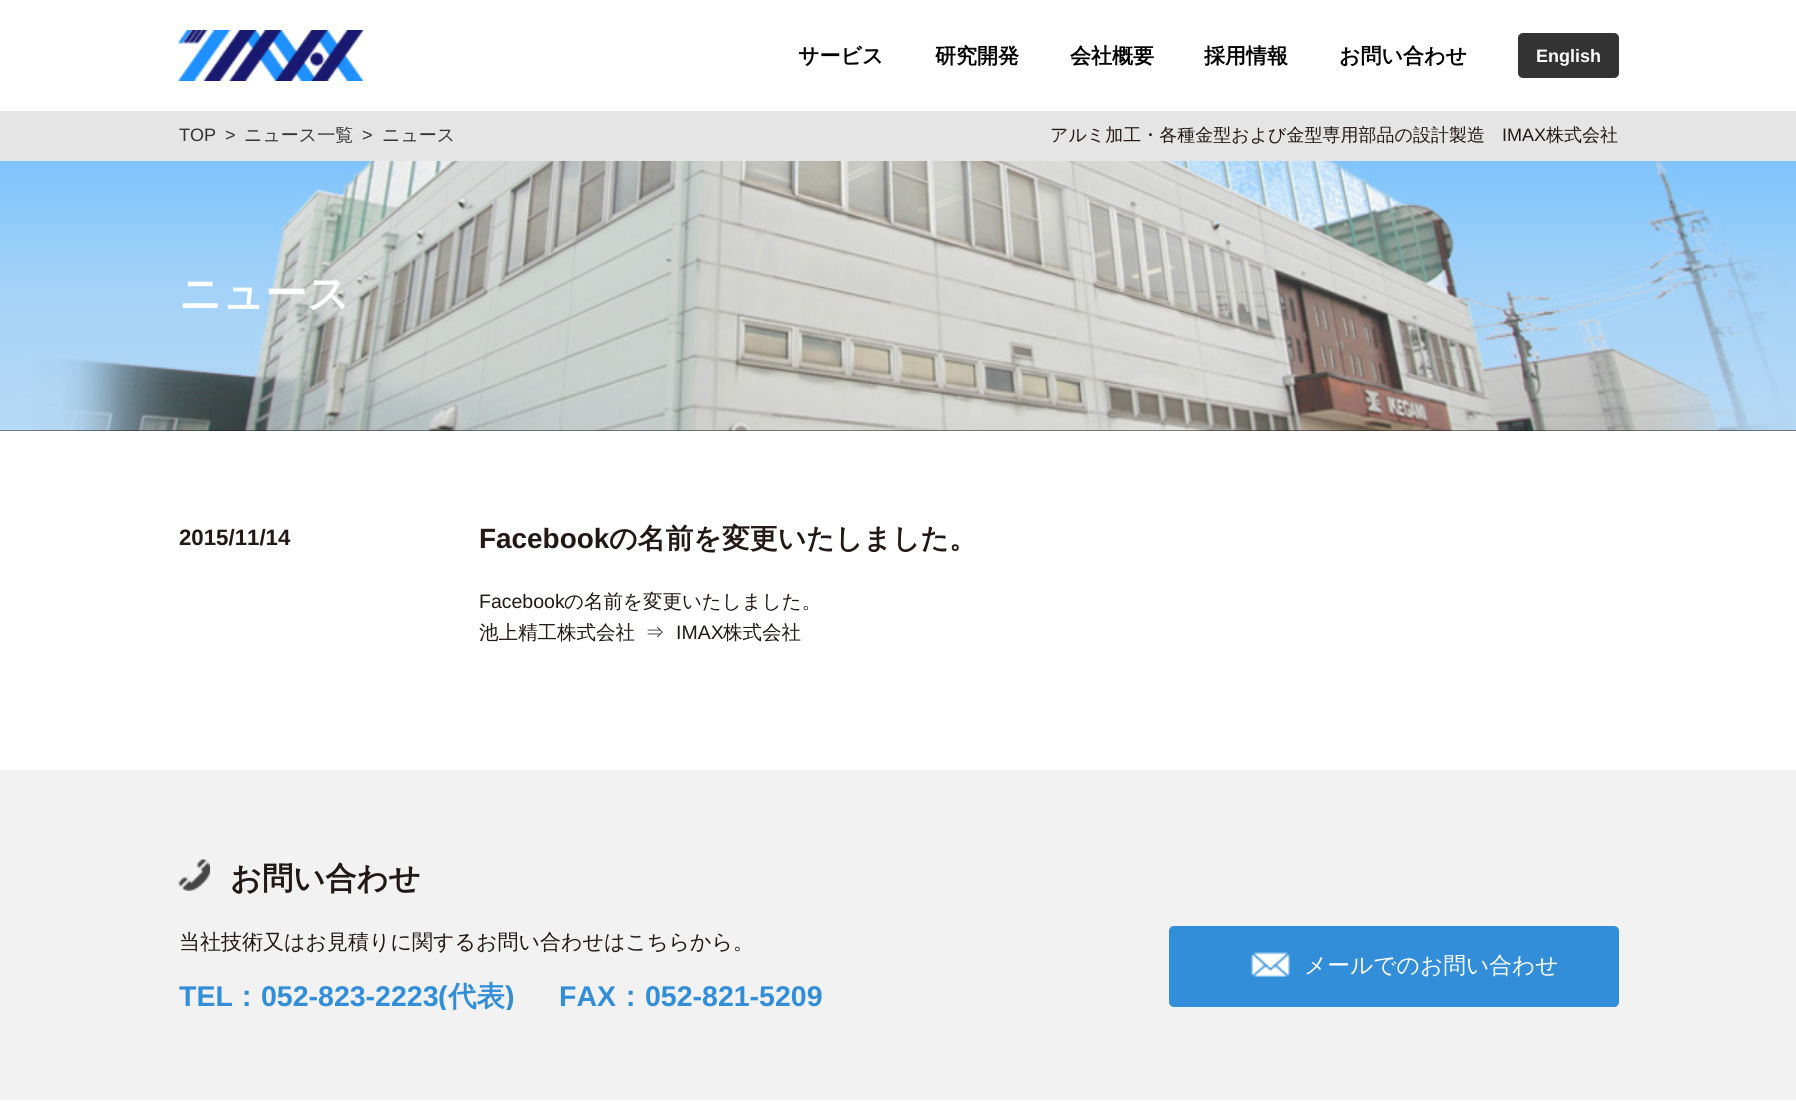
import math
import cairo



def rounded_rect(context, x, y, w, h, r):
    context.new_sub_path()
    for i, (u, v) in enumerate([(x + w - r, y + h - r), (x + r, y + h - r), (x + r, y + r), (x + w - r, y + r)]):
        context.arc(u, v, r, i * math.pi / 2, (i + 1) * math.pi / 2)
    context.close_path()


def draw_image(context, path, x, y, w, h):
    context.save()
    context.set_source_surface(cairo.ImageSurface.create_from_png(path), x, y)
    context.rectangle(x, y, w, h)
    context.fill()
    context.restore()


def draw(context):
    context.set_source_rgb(26 / 255, 26 / 255, 26 / 255)
    context.paint()
    context.set_source_rgb(1, 1, 1)
    context.rectangle(0, 0, 1796, 111)
    context.fill()
    draw_image(context, "images/1.png", 178, 30, 185, 51)
    context.set_source_rgb(51 / 255, 51 / 255, 51 / 255)
    rounded_rect(context, 1518, 33, 101, 45, 5)
    context.fill()
    context.set_source_rgb(229 / 255, 229 / 255, 229 / 255)
    context.rectangle(0, 111, 1796, 50)
    context.fill()
    draw_image(context, "images/2.png", 0, 161, 1796, 270)
    context.set_source_rgb(1, 1, 1)
    context.rectangle(0, 431, 1796, 673)
    context.fill()
    context.set_source_rgb(242 / 255, 242 / 255, 242 / 255)
    context.rectangle(0, 770, 1796, 330)
    context.fill()
    draw_image(context, "images/3.png", 178, 859, 32, 32)
    context.set_source_rgb(50 / 255, 142 / 255, 216 / 255)
    rounded_rect(context, 1169, 926, 450, 81, 5)
    context.fill()
    draw_image(context, "images/4.png", 1251, 952, 39, 25)
    context.select_font_face("WenQuanYi Zen Hei", cairo.FontSlant.NORMAL, cairo.FontWeight.BOLD)
    context.set_font_size(21)
    context.set_source_rgb(0, 0, 0)
    context.move_to(798, 63)
    context.show_text("サービス")
    context.move_to(935, 63)
    context.show_text("研究開発")
    context.move_to(1070, 63)
    context.show_text("会社概要")
    context.move_to(1204, 63)
    context.show_text("採用情報")
    context.move_to(1339, 63)
    context.show_text("お問い合わせ")
    context.select_font_face("Liberation Sans", cairo.FontSlant.NORMAL, cairo.FontWeight.BOLD)
    context.set_font_size(18)
    context.set_source_rgb(1, 254 / 255, 254 / 255)
    context.move_to(1536, 62)
    context.show_text("English")
    context.select_font_face("Liberation Sans")
    context.set_source_rgb(51 / 255, 51 / 255, 51 / 255)
    context.move_to(179, 141)
    context.show_text("TOP")
    context.move_to(225, 141)
    context.show_text(">")
    context.select_font_face("WenQuanYi Zen Hei Medium")
    context.move_to(244, 141)
    context.show_text("ニュース一覧")
    context.select_font_face("Liberation Sans")
    context.move_to(362, 141)
    context.show_text(">")
    context.select_font_face("WenQuanYi Zen Hei Medium")
    context.move_to(382, 141)
    context.show_text("ニュース")
    context.set_source_rgb(34 / 255, 24 / 255, 21 / 255)
    context.move_to(1050, 141)
    context.show_text("アルミ加工・各種金型および金型専用部品の設計製造")
    context.select_font_face("Liberation Sans")
    context.move_to(1502, 141)
    context.show_text("IMAX")
    context.select_font_face("WenQuanYi Zen Hei Medium")
    context.move_to(1546, 141)
    context.show_text("株式会社")
    context.select_font_face("WenQuanYi Zen Hei", cairo.FontSlant.NORMAL, cairo.FontWeight.BOLD)
    context.set_font_size(42)
    context.set_source_rgb(1, 254 / 255, 254 / 255)
    context.move_to(179, 308)
    context.show_text("ニュース")
    context.select_font_face("Liberation Sans", cairo.FontSlant.NORMAL, cairo.FontWeight.BOLD)
    context.set_font_size(22.25)
    context.set_source_rgb(34 / 255, 24 / 255, 21 / 255)
    context.move_to(179, 545)
    context.show_text("2015/11/14")
    context.set_font_size(27.9)
    context.move_to(479, 548)
    context.show_text("Facebook")
    context.select_font_face("WenQuanYi Zen Hei", cairo.FontSlant.NORMAL, cairo.FontWeight.BOLD)
    context.move_to(609, 548)
    context.show_text("の名前を変更いたしました。")
    context.select_font_face("Liberation Sans")
    context.set_font_size(19.5)
    context.move_to(479, 608)
    context.show_text("Facebook")
    context.select_font_face("WenQuanYi Zen Hei Medium")
    context.move_to(564, 608)
    context.show_text("の名前を変更いたしました。")
    context.move_to(479, 639)
    context.show_text("池上精工株式会社")
    context.move_to(645, 639)
    context.show_text("⇒")
    context.select_font_face("Liberation Sans")
    context.move_to(676, 639)
    context.show_text("IMAX")
    context.select_font_face("WenQuanYi Zen Hei Medium")
    context.move_to(723, 639)
    context.show_text("株式会社")
    context.select_font_face("WenQuanYi Zen Hei", cairo.FontSlant.NORMAL, cairo.FontWeight.BOLD)
    context.set_font_size(31.25)
    context.move_to(230, 889)
    context.show_text("お問い合わせ")
    context.select_font_face("WenQuanYi Zen Hei Medium")
    context.set_font_size(21)
    context.move_to(179, 949)
    context.show_text("当社技術又はお見積りに関するお問い合わせはこちらから。")
    context.save()
    context.rectangle(179, 959, 688, 51)
    context.clip()
    context.select_font_face("Liberation Sans", cairo.FontSlant.NORMAL, cairo.FontWeight.BOLD)
    context.set_font_size(28.5)
    context.set_source_rgb(50 / 255, 142 / 255, 216 / 255)
    context.move_to(179, 1006)
    context.show_text("TEL")
    context.restore()
    context.select_font_face("WenQuanYi Zen Hei", cairo.FontSlant.NORMAL, cairo.FontWeight.BOLD)
    context.set_font_size(28.5)
    context.set_source_rgb(50 / 255, 142 / 255, 216 / 255)
    context.move_to(232, 1006)
    context.show_text("：")
    context.select_font_face("Liberation Sans", cairo.FontSlant.NORMAL, cairo.FontWeight.BOLD)
    context.move_to(261, 1006)
    context.show_text("052-823-2223")
    context.save()
    context.rectangle(179, 959, 688, 51)
    context.clip()
    context.move_to(438, 1006)
    context.show_text("(")
    context.restore()
    context.select_font_face("WenQuanYi Zen Hei", cairo.FontSlant.NORMAL, cairo.FontWeight.BOLD)
    context.move_to(448, 1006)
    context.show_text("代表")
    context.save()
    context.rectangle(179, 959, 688, 51)
    context.clip()
    context.select_font_face("Liberation Sans", cairo.FontSlant.NORMAL, cairo.FontWeight.BOLD)
    context.move_to(505, 1006)
    context.show_text(")")
    context.restore()
    context.select_font_face("Liberation Sans", cairo.FontSlant.NORMAL, cairo.FontWeight.BOLD)
    context.move_to(559, 1006)
    context.show_text("FAX")
    context.select_font_face("WenQuanYi Zen Hei", cairo.FontSlant.NORMAL, cairo.FontWeight.BOLD)
    context.move_to(616, 1006)
    context.show_text("：")
    context.select_font_face("Liberation Sans", cairo.FontSlant.NORMAL, cairo.FontWeight.BOLD)
    context.move_to(645, 1006)
    context.show_text("052-821-5209")
    context.select_font_face("WenQuanYi Zen Hei Medium")
    context.set_font_size(22.75)
    context.set_source_rgb(1, 254 / 255, 254 / 255)
    context.move_to(1304, 973)
    context.show_text("メールでのお問い合わせ")


surface = cairo.ImageSurface(cairo.Format.RGB24, 1796, 1104)
context = cairo.Context(surface)
options = cairo.FontOptions()
options.set_hint_metrics(cairo.HintMetrics.OFF)
options.set_hint_style(cairo.HintStyle.NONE)
context.set_font_options(options)
context.set_miter_limit(4)
draw(context)
surface.write_to_png("out.png")
